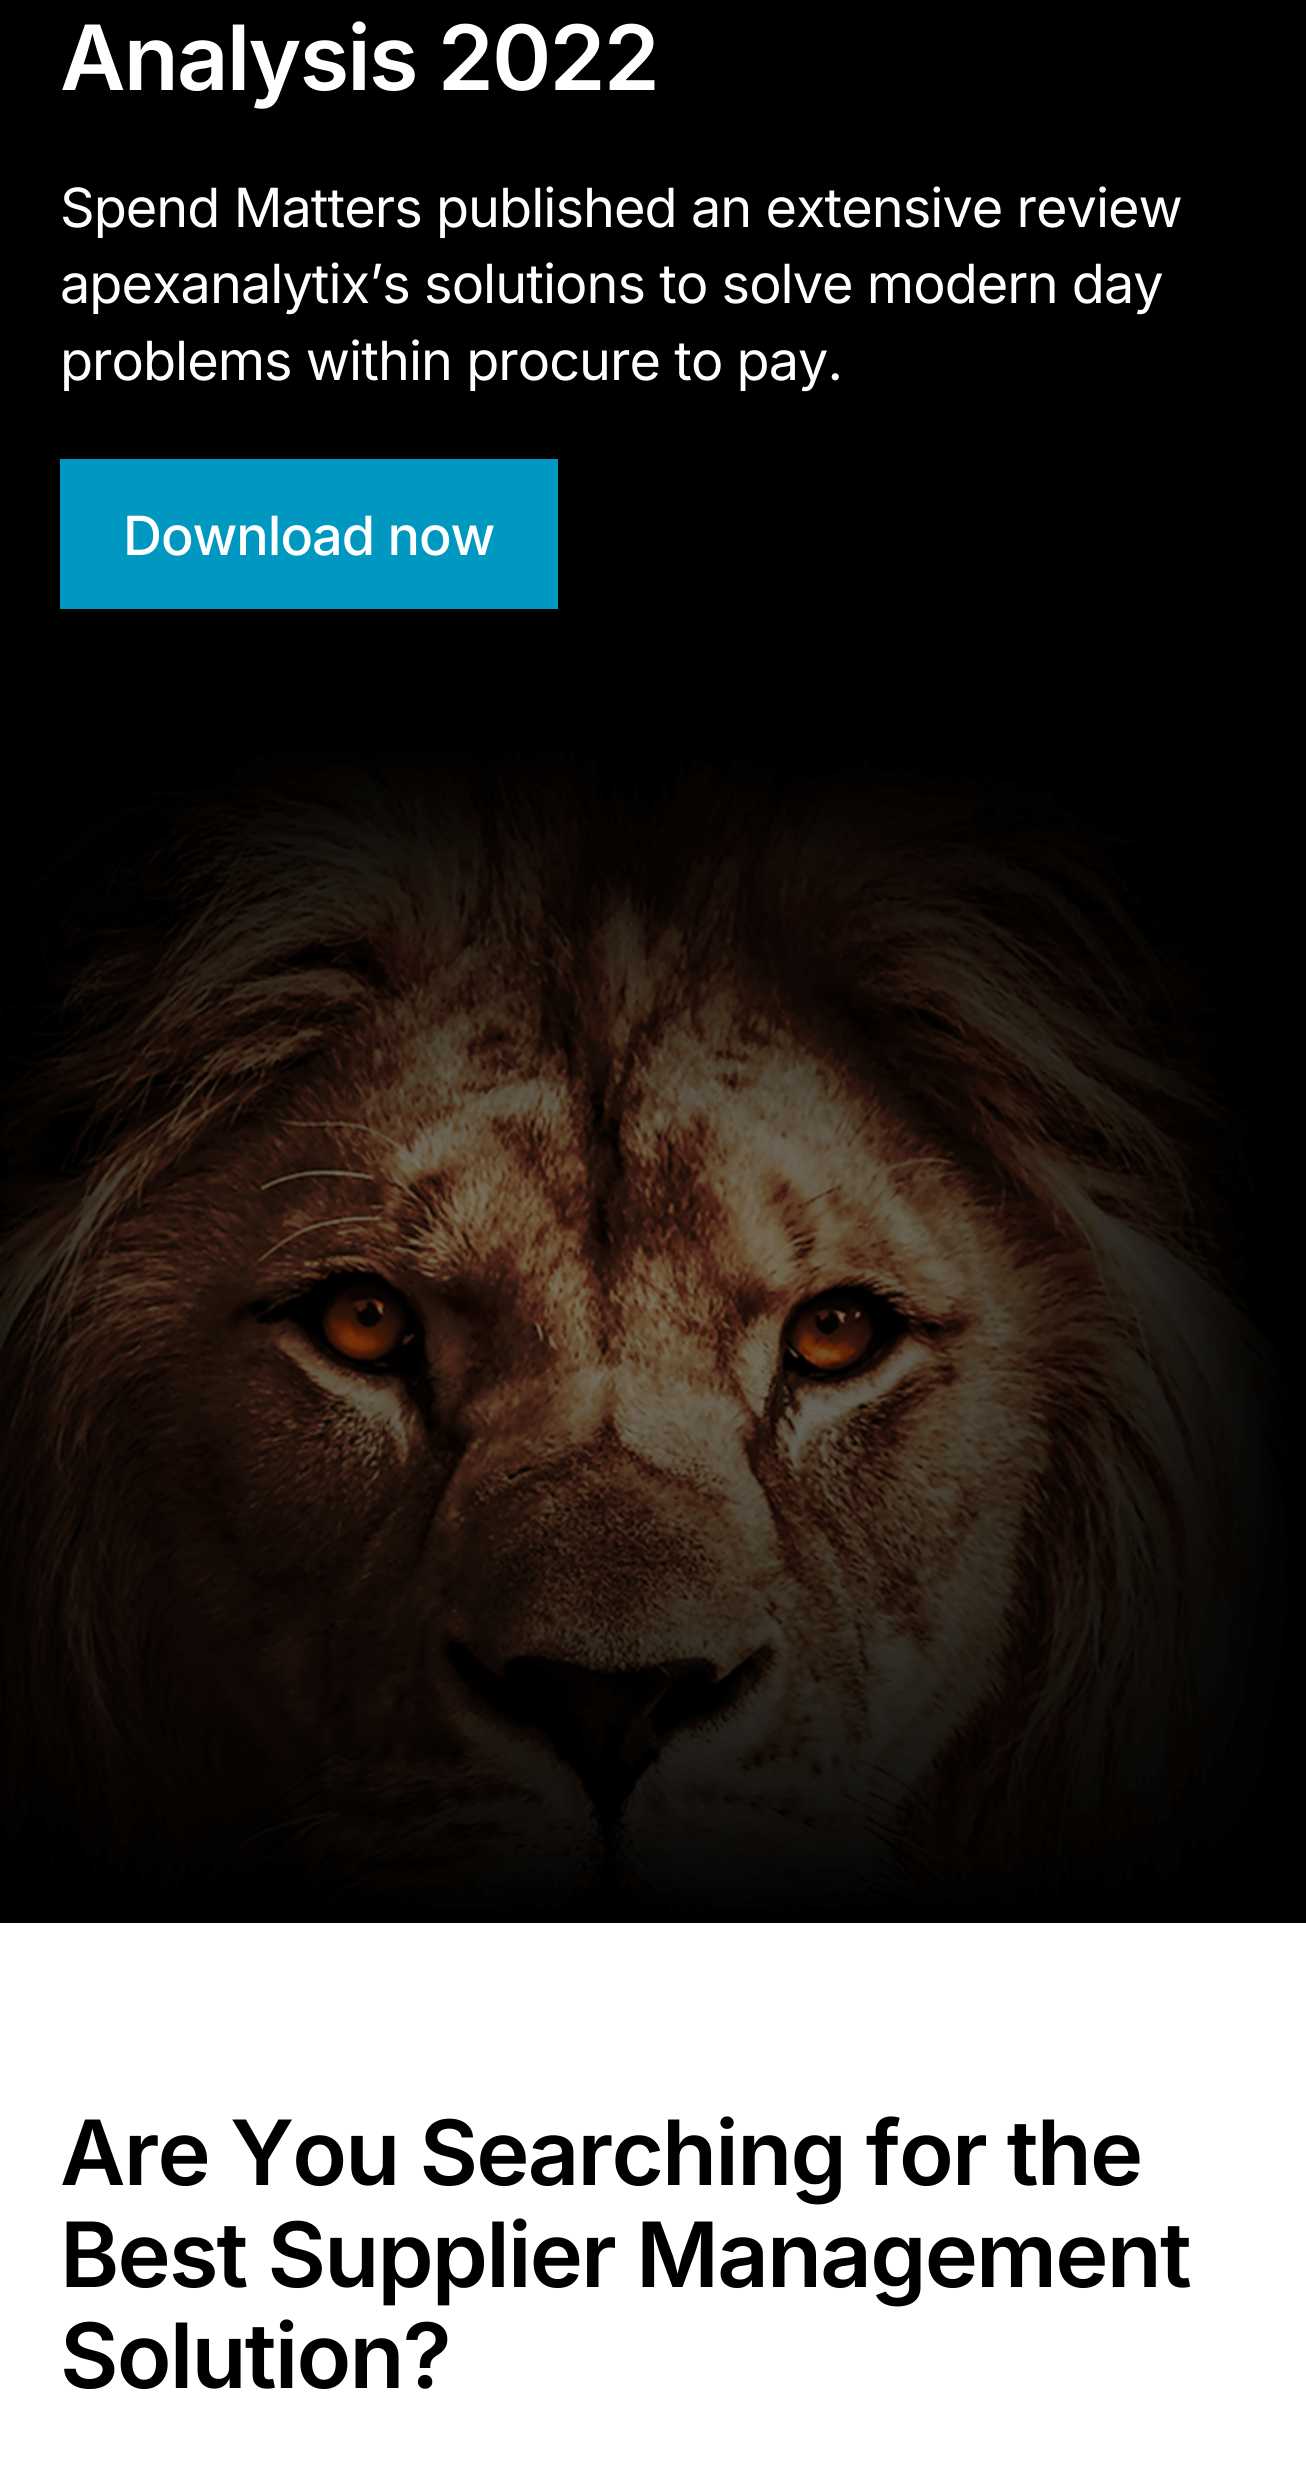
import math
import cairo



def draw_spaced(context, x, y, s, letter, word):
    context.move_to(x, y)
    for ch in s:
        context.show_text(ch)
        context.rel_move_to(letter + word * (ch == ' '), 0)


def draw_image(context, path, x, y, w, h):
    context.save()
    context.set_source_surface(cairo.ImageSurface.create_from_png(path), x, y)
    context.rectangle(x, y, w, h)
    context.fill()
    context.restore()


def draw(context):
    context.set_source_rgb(1, 1, 1)
    context.paint()
    context.set_source_rgb(0, 0, 0)
    context.rectangle(0, 0, 1306, 1923)
    context.fill()
    context.set_source_rgb(0, 152 / 255, 193 / 255)
    context.rectangle(60, 459, 498, 150)
    context.fill()
    draw_image(context, "images/1.png", 0, 747, 1293, 1166)
    context.select_font_face("Inter SemiBold")
    context.set_font_size(90)
    context.set_source_rgb(1, 1, 1)
    draw_spaced(context, 60, 90, "Analysis 2022", -1.8, 0)
    context.select_font_face("Inter")
    context.set_font_size(54)
    draw_spaced(context, 60, 227, "Spend Matters published an extensive review", -0.95, 0)
    draw_spaced(context, 60, 303, "apexanalytix’s solutions to solve modern day", -0.95, 0)
    draw_spaced(context, 60, 380, "problems within procure to pay.", -0.95, 0)
    context.select_font_face("Inter Medium")
    draw_spaced(context, 123, 555, "Download now", -1, 0)
    context.select_font_face("Inter SemiBold")
    context.set_font_size(90)
    context.set_source_rgb(0, 0, 0)
    draw_spaced(context, 60, 2185, "Are You Searching for the", -1.8, 0)
    draw_spaced(context, 60, 2287, "Best Supplier Management", -1.8, 0)
    draw_spaced(context, 60, 2388, "Solution?", -1.8, 0)


surface = cairo.ImageSurface(cairo.Format.RGB24, 1306, 2480)
context = cairo.Context(surface)
options = cairo.FontOptions()
options.set_hint_metrics(cairo.HintMetrics.OFF)
options.set_hint_style(cairo.HintStyle.NONE)
context.set_font_options(options)
context.set_miter_limit(4)
draw(context)
surface.write_to_png("out.png")
